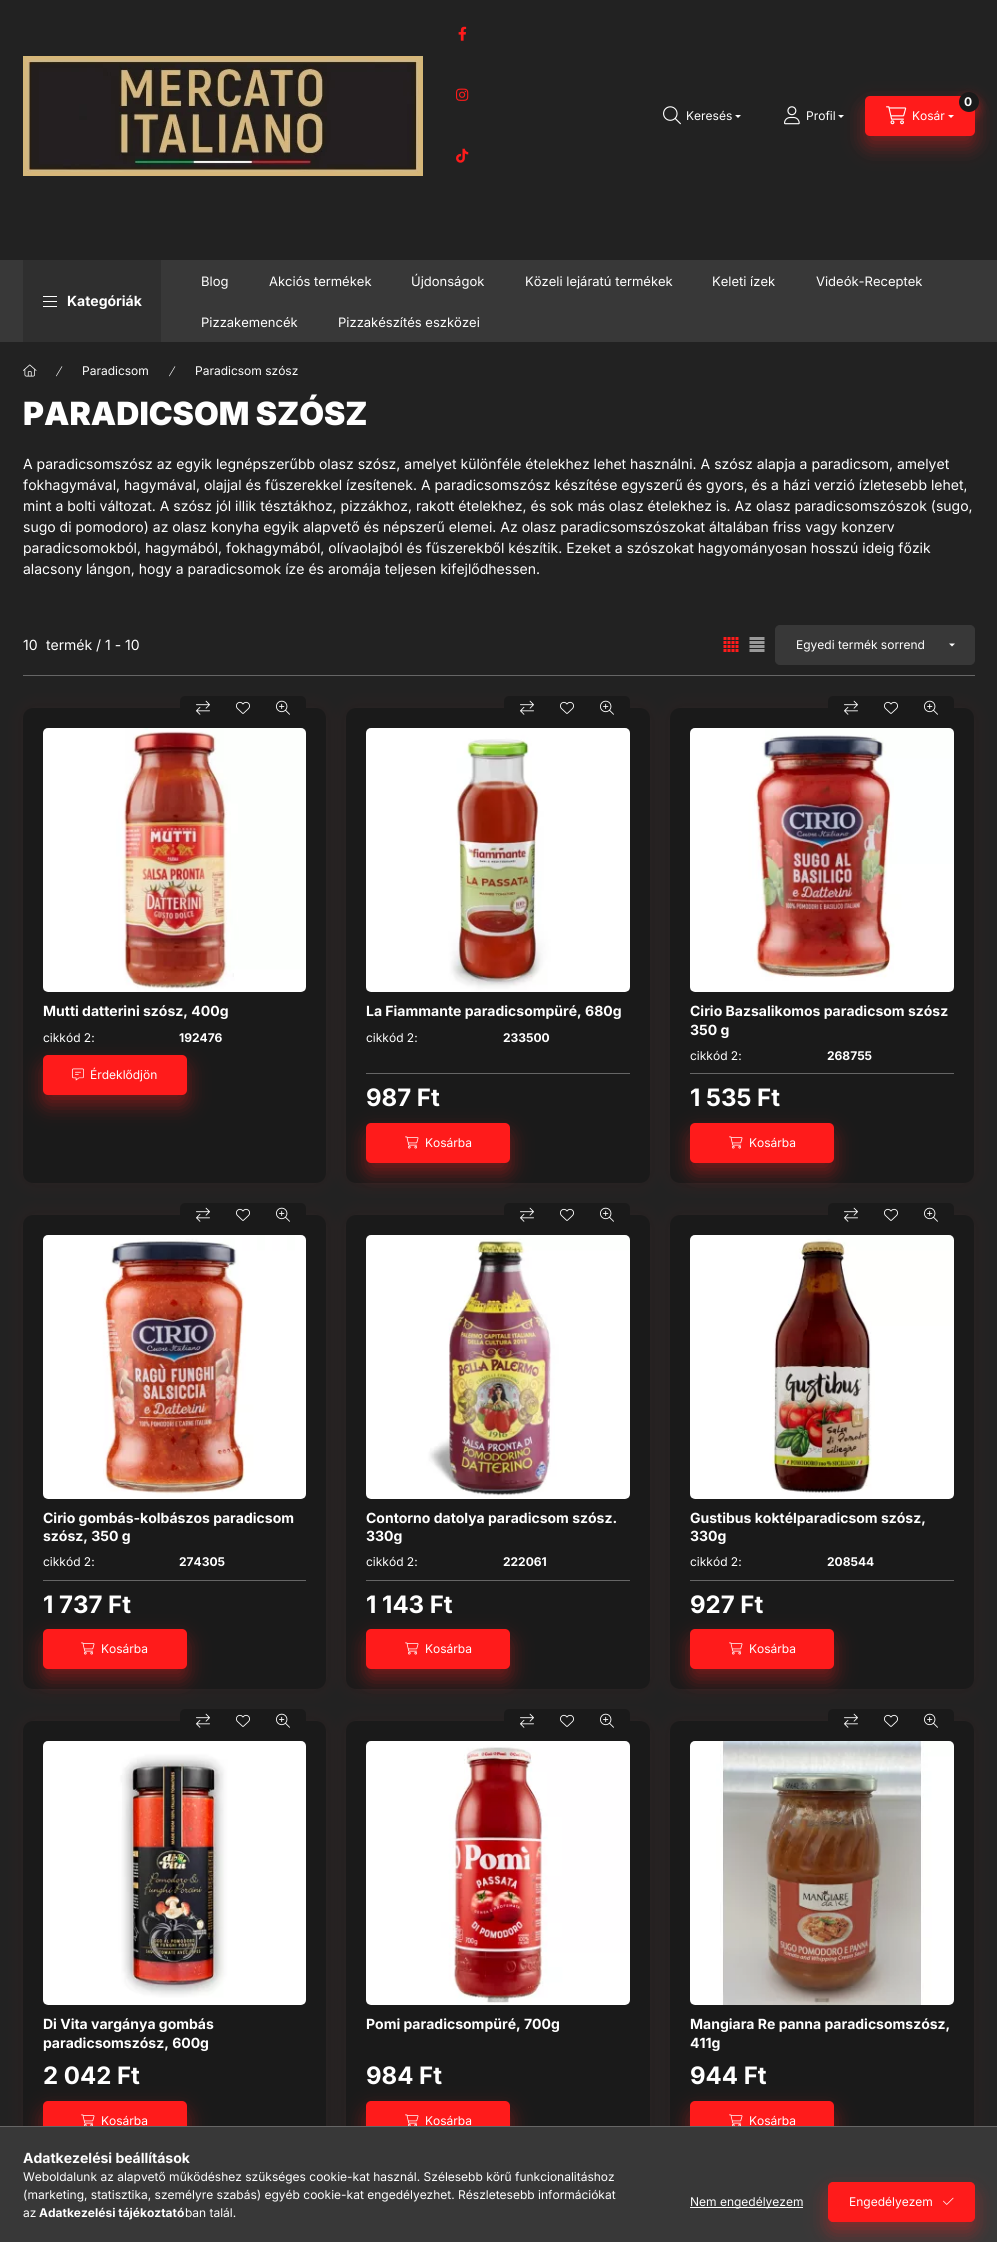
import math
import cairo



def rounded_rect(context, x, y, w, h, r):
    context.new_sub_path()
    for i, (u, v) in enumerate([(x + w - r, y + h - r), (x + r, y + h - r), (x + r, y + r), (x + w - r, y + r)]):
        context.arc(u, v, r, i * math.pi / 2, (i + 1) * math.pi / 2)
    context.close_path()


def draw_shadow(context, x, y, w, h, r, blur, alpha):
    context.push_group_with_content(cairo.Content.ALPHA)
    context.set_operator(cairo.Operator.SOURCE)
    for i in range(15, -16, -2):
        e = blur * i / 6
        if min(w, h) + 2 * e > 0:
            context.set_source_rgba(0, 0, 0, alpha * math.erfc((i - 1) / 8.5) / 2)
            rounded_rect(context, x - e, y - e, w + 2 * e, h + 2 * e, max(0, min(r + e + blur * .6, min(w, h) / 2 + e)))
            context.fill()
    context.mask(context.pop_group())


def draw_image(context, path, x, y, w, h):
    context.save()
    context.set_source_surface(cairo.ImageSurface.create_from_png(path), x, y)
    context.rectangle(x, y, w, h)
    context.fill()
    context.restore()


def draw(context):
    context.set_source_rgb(34 / 255, 34 / 255, 34 / 255)
    context.paint()
    draw_image(context, "images/1.png", 23, 56, 400, 120)
    draw_image(context, "images/2.png", 458, 26, 9, 15)
    draw_image(context, "images/3.png", 456, 88, 13, 13)
    draw_image(context, "images/4.png", 456, 148, 13, 15)
    draw_image(context, "images/5.png", 663, 106, 18, 19)
    context.set_source_rgb(1, 1, 1)
    context.new_path()
    context.move_to(735, 115)
    context.line_to(741, 115)
    context.line_to(738, 118)
    context.close_path()
    context.fill()
    draw_image(context, "images/6.png", 784, 106, 16, 19)
    context.set_source_rgb(1, 27 / 255, 27 / 255)
    draw_shadow(context, 865, 106, 110, 40, 5, 10, 0.4)
    context.set_source_rgb(1, 1, 1)
    context.new_path()
    context.move_to(838, 115)
    context.line_to(844, 115)
    context.line_to(841, 118)
    context.close_path()
    context.fill()
    context.set_source_rgb(1, 27 / 255, 27 / 255)
    rounded_rect(context, 865, 96, 110, 40, 5)
    context.fill()
    context.set_source_rgb(1, 27 / 255, 27 / 255)
    draw_shadow(context, 959, 97, 20, 20, 10, 5, 0.4)
    context.set_source_rgb(26 / 255, 26 / 255, 26 / 255)
    context.arc(969, 102, 10, 0, 2 * math.pi)
    context.fill()
    draw_image(context, "images/7.png", 886, 106, 21, 19)
    context.set_source_rgb(1, 1, 1)
    context.new_path()
    context.move_to(948, 115)
    context.line_to(954, 115)
    context.line_to(951, 118)
    context.close_path()
    context.fill()
    context.set_source_rgb(56 / 255, 56 / 255, 56 / 255)
    context.rectangle(0, 260, 997, 82)
    context.fill()
    context.set_source_rgb(47 / 255, 47 / 255, 47 / 255)
    context.rectangle(23, 260, 138, 82)
    context.fill()
    context.set_source_rgb(1, 1, 1)
    context.rectangle(43, 296, 14, 1)
    context.fill()
    context.rectangle(43, 301, 14, 1)
    context.fill()
    context.rectangle(43, 306, 14, 1)
    context.fill()
    draw_image(context, "images/8.png", 23, 364, 14, 13)
    draw_image(context, "images/9.png", 56, 366, 7, 11)
    draw_image(context, "images/9.png", 169, 366, 7, 11)
    context.set_source_rgb(102 / 255, 102 / 255, 102 / 255)
    context.rectangle(23, 675, 952, 1)
    context.fill()
    draw_image(context, "images/10.png", 723, 637, 16, 15)
    draw_image(context, "images/11.png", 749, 637, 16, 15)
    context.set_source_rgb(56 / 255, 56 / 255, 56 / 255)
    rounded_rect(context, 775.5, 625.5, 199, 39, 4.5)
    context.fill_preserve()
    context.set_line_width(1)
    context.stroke()
    context.set_source_rgb(1, 1, 1)
    context.new_path()
    context.move_to(949, 643.5)
    context.line_to(955, 643.5)
    context.line_to(952, 646.5)
    context.close_path()
    context.fill()
    context.set_source_rgb(1, 27 / 255, 27 / 255)
    draw_shadow(context, 23, 708, 303, 475, 10, 10, 0.05)
    context.set_source_rgb(26 / 255, 26 / 255, 26 / 255)
    rounded_rect(context, 23, 708, 303, 475, 10)
    context.fill()
    rounded_rect(context, 180, 696, 126, 24, 5)
    context.fill()
    draw_image(context, "images/12.png", 196, 700, 14, 15)
    draw_image(context, "images/13.png", 236, 701, 14, 13)
    draw_image(context, "images/14.png", 276, 700, 14, 15)
    draw_image(context, "images/15.png", 43, 728, 263, 264)
    context.set_source_rgb(1, 27 / 255, 27 / 255)
    draw_shadow(context, 43, 1065, 144, 40, 5, 10, 0.4)
    context.set_source_rgb(1, 27 / 255, 27 / 255)
    rounded_rect(context, 43, 1055, 144, 40, 5)
    context.fill()
    draw_image(context, "images/16.png", 71, 1068, 13, 13)
    context.set_source_rgb(1, 27 / 255, 27 / 255)
    draw_shadow(context, 346, 708, 304, 475, 10, 10, 0.05)
    context.set_source_rgb(26 / 255, 26 / 255, 26 / 255)
    rounded_rect(context, 346, 708, 304, 475, 10)
    context.fill()
    rounded_rect(context, 504, 696, 126, 24, 5)
    context.fill()
    draw_image(context, "images/12.png", 520, 700, 14, 15)
    draw_image(context, "images/13.png", 560, 701, 14, 13)
    draw_image(context, "images/14.png", 600, 700, 14, 15)
    draw_image(context, "images/17.png", 366, 728, 264, 264)
    context.set_source_rgb(102 / 255, 102 / 255, 102 / 255)
    context.rectangle(366, 1073, 264, 1)
    context.fill()
    context.set_source_rgb(1, 27 / 255, 27 / 255)
    draw_shadow(context, 366, 1133, 144, 40, 5, 10, 0.4)
    context.set_source_rgb(1, 27 / 255, 27 / 255)
    rounded_rect(context, 366, 1123, 144, 40, 5)
    context.fill()
    draw_image(context, "images/18.png", 405, 1136, 14, 13)
    context.set_source_rgb(1, 27 / 255, 27 / 255)
    draw_shadow(context, 670, 708, 304, 475, 10, 10, 0.05)
    context.set_source_rgb(26 / 255, 26 / 255, 26 / 255)
    rounded_rect(context, 670, 708, 304, 475, 10)
    context.fill()
    rounded_rect(context, 828, 696, 126, 24, 5)
    context.fill()
    draw_image(context, "images/12.png", 844, 700, 14, 15)
    draw_image(context, "images/13.png", 884, 701, 14, 13)
    draw_image(context, "images/14.png", 924, 700, 14, 15)
    draw_image(context, "images/19.png", 690, 728, 264, 264)
    context.set_source_rgb(102 / 255, 102 / 255, 102 / 255)
    context.rectangle(690, 1073, 264, 1)
    context.fill()
    context.set_source_rgb(1, 27 / 255, 27 / 255)
    draw_shadow(context, 690, 1133, 144, 40, 5, 10, 0.4)
    context.set_source_rgb(1, 27 / 255, 27 / 255)
    rounded_rect(context, 690, 1123, 144, 40, 5)
    context.fill()
    draw_image(context, "images/18.png", 729, 1136, 14, 13)
    context.set_source_rgb(1, 27 / 255, 27 / 255)
    draw_shadow(context, 23, 1215, 303, 474, 10, 10, 0.05)
    context.set_source_rgb(26 / 255, 26 / 255, 26 / 255)
    rounded_rect(context, 23, 1215, 303, 474, 10)
    context.fill()
    rounded_rect(context, 180, 1203, 126, 24, 5)
    context.fill()
    draw_image(context, "images/12.png", 196, 1207, 14, 15)
    draw_image(context, "images/13.png", 236, 1208, 14, 13)
    draw_image(context, "images/14.png", 276, 1207, 14, 15)
    draw_image(context, "images/20.png", 43, 1235, 263, 264)
    context.set_source_rgb(102 / 255, 102 / 255, 102 / 255)
    context.rectangle(43, 1580, 263, 1)
    context.fill()
    context.set_source_rgb(1, 27 / 255, 27 / 255)
    draw_shadow(context, 43, 1639, 144, 40, 5, 10, 0.4)
    context.set_source_rgb(1, 27 / 255, 27 / 255)
    rounded_rect(context, 43, 1629, 144, 40, 5)
    context.fill()
    draw_image(context, "images/18.png", 81, 1642, 14, 13)
    context.set_source_rgb(1, 27 / 255, 27 / 255)
    draw_shadow(context, 346, 1215, 304, 474, 10, 10, 0.05)
    context.set_source_rgb(26 / 255, 26 / 255, 26 / 255)
    rounded_rect(context, 346, 1215, 304, 474, 10)
    context.fill()
    rounded_rect(context, 504, 1203, 126, 24, 5)
    context.fill()
    draw_image(context, "images/12.png", 520, 1207, 14, 15)
    draw_image(context, "images/13.png", 560, 1208, 14, 13)
    draw_image(context, "images/14.png", 600, 1207, 14, 15)
    draw_image(context, "images/21.png", 366, 1235, 264, 264)
    context.set_source_rgb(102 / 255, 102 / 255, 102 / 255)
    context.rectangle(366, 1580, 264, 1)
    context.fill()
    context.set_source_rgb(1, 27 / 255, 27 / 255)
    draw_shadow(context, 366, 1639, 144, 40, 5, 10, 0.4)
    context.set_source_rgb(1, 27 / 255, 27 / 255)
    rounded_rect(context, 366, 1629, 144, 40, 5)
    context.fill()
    draw_image(context, "images/18.png", 405, 1642, 14, 13)
    context.set_source_rgb(1, 27 / 255, 27 / 255)
    draw_shadow(context, 670, 1215, 304, 474, 10, 10, 0.05)
    context.set_source_rgb(26 / 255, 26 / 255, 26 / 255)
    rounded_rect(context, 670, 1215, 304, 474, 10)
    context.fill()
    rounded_rect(context, 828, 1203, 126, 24, 5)
    context.fill()
    draw_image(context, "images/12.png", 844, 1207, 14, 15)
    draw_image(context, "images/13.png", 884, 1208, 14, 13)
    draw_image(context, "images/14.png", 924, 1207, 14, 15)
    draw_image(context, "images/22.png", 690, 1235, 264, 264)
    context.set_source_rgb(102 / 255, 102 / 255, 102 / 255)
    context.rectangle(690, 1580, 264, 1)
    context.fill()
    context.set_source_rgb(1, 27 / 255, 27 / 255)
    draw_shadow(context, 690, 1639, 144, 40, 5, 10, 0.4)
    context.set_source_rgb(1, 27 / 255, 27 / 255)
    rounded_rect(context, 690, 1629, 144, 40, 5)
    context.fill()
    draw_image(context, "images/18.png", 729, 1642, 14, 13)
    context.set_source_rgb(1, 27 / 255, 27 / 255)
    draw_shadow(context, 23, 1721, 303, 440, 10, 10, 0.05)
    context.set_source_rgb(26 / 255, 26 / 255, 26 / 255)
    rounded_rect(context, 23, 1721, 303, 440, 10)
    context.fill()
    rounded_rect(context, 180, 1709, 126, 24, 5)
    context.fill()
    draw_image(context, "images/12.png", 196, 1713, 14, 15)
    draw_image(context, "images/13.png", 236, 1714, 14, 13)
    draw_image(context, "images/14.png", 276, 1713, 14, 15)
    draw_image(context, "images/23.png", 43, 1741, 263, 264)
    context.set_source_rgb(1, 27 / 255, 27 / 255)
    draw_shadow(context, 43, 2111, 144, 40, 5, 10, 0.4)
    context.set_source_rgb(1, 27 / 255, 27 / 255)
    rounded_rect(context, 43, 2101, 144, 40, 5)
    context.fill()
    draw_image(context, "images/24.png", 81, 2114, 14, 12)
    context.set_source_rgb(1, 27 / 255, 27 / 255)
    draw_shadow(context, 346, 1721, 304, 440, 10, 10, 0.05)
    context.set_source_rgb(26 / 255, 26 / 255, 26 / 255)
    rounded_rect(context, 346, 1721, 304, 440, 10)
    context.fill()
    rounded_rect(context, 504, 1709, 126, 24, 5)
    context.fill()
    draw_image(context, "images/12.png", 520, 1713, 14, 15)
    draw_image(context, "images/13.png", 560, 1714, 14, 13)
    draw_image(context, "images/14.png", 600, 1713, 14, 15)
    draw_image(context, "images/25.png", 366, 1741, 264, 264)
    context.set_source_rgb(1, 27 / 255, 27 / 255)
    draw_shadow(context, 366, 2111, 144, 40, 5, 10, 0.4)
    context.set_source_rgb(1, 27 / 255, 27 / 255)
    rounded_rect(context, 366, 2101, 144, 40, 5)
    context.fill()
    draw_image(context, "images/24.png", 405, 2114, 14, 12)
    context.set_source_rgb(1, 27 / 255, 27 / 255)
    draw_shadow(context, 670, 1721, 304, 440, 10, 10, 0.05)
    context.set_source_rgb(26 / 255, 26 / 255, 26 / 255)
    rounded_rect(context, 670, 1721, 304, 440, 10)
    context.fill()
    rounded_rect(context, 828, 1709, 126, 24, 5)
    context.fill()
    draw_image(context, "images/12.png", 844, 1713, 14, 15)
    draw_image(context, "images/13.png", 884, 1714, 14, 13)
    draw_image(context, "images/14.png", 924, 1713, 14, 15)
    draw_image(context, "images/26.png", 690, 1741, 264, 264)
    context.set_source_rgb(1, 27 / 255, 27 / 255)
    draw_shadow(context, 690, 2111, 144, 40, 5, 10, 0.4)
    context.set_source_rgb(1, 27 / 255, 27 / 255)
    rounded_rect(context, 690, 2101, 144, 40, 5)
    context.fill()
    draw_image(context, "images/24.png", 729, 2114, 14, 12)
    context.set_source_rgb(56 / 255, 56 / 255, 56 / 255)
    context.rectangle(0, 2127, 997, 115)
    context.fill()
    context.set_source_rgb(102 / 255, 102 / 255, 102 / 255)
    context.rectangle(0, 2126, 997, 1)
    context.fill()
    context.set_source_rgb(1, 1, 1)
    context.rectangle(690, 2207, 113, 1)
    context.fill()
    context.set_source_rgb(1, 27 / 255, 27 / 255)
    draw_shadow(context, 828, 2192, 147, 40, 5, 10, 0.4)
    context.set_source_rgb(1, 27 / 255, 27 / 255)
    rounded_rect(context, 828.5, 2182.5, 146, 39, 4.5)
    context.fill_preserve()
    context.stroke()
    draw_image(context, "images/27.png", 943, 2197, 11, 8)
    context.select_font_face("Inter")
    context.set_font_size(12)
    context.set_source_rgb(1, 1, 1)
    context.move_to(686, 120)
    context.show_text("Keresés")
    context.move_to(806, 120)
    context.show_text("Profil")
    context.select_font_face("Inter", cairo.FontSlant.NORMAL, cairo.FontWeight.BOLD)
    context.move_to(964, 106)
    context.show_text("0")
    context.select_font_face("Inter")
    context.move_to(912, 120)
    context.show_text("Kosár")
    context.select_font_face("Inter", cairo.FontSlant.NORMAL, cairo.FontWeight.BOLD)
    context.set_font_size(14)
    context.move_to(67, 306)
    context.show_text("Kategóriák")
    context.select_font_face("Inter")
    context.set_font_size(13)
    context.move_to(201, 286)
    context.show_text("Blog")
    context.move_to(269, 286)
    context.show_text("Akciós termékek")
    context.move_to(411, 286)
    context.show_text("Újdonságok")
    context.move_to(525, 286)
    context.show_text("Közeli lejáratú termékek")
    context.move_to(712, 286)
    context.show_text("Keleti ízek")
    context.move_to(816, 286)
    context.show_text("Videók-Receptek")
    context.move_to(201, 327)
    context.show_text("Pizzakemencék")
    context.move_to(338, 327)
    context.show_text("Pizzakészítés eszközei")
    context.set_font_size(12)
    context.move_to(82, 375)
    context.show_text("Paradicsom")
    context.move_to(195, 375)
    context.show_text("Paradicsom szósz")
    context.select_font_face("Inter Black")
    context.set_font_size(32)
    context.move_to(23, 425)
    context.show_text("PARADICSOM SZÓSZ")
    context.select_font_face("Inter")
    context.set_font_size(14)
    context.move_to(23, 469)
    context.show_text("A paradicsomszósz az egyik legnépszerűbb olasz szósz, amelyet különféle ételekhez lehet használni. A szósz alapja a paradicsom, amelyet")
    context.move_to(23, 490)
    context.show_text("fokhagymával, hagymával, olajjal és fűszerekkel ízesítenek. A paradicsomszósz készítése egyszerű és gyors, és a házi verzió ízletesebb lehet,")
    context.move_to(23, 511)
    context.show_text("mint a bolti változat. A szósz jól illik tésztákhoz, pizzákhoz, rakott ételekhez, és sok más olasz ételekhez is. Az olasz paradicsomszószok (sugo,")
    context.move_to(23, 532)
    context.show_text("sugo di pomodoro) az olasz konyha egyik alapvető és népszerű elemei. Az olasz paradicsomszószokat általában friss vagy konzerv")
    context.move_to(23, 553)
    context.show_text("paradicsomokból, hagymából, fokhagymából, olívaolajból és fűszerekből készítik. Ezeket a szószokat hagyományosan hosszú ideig főzik")
    context.move_to(23, 574)
    context.show_text("alacsony lángon, hogy a paradicsomok íze és aromája teljesen kifejlődhessen.")
    context.move_to(23, 650)
    context.show_text("10")
    context.move_to(46, 650)
    context.show_text("termék / 1 - 10")
    context.set_font_size(12)
    context.move_to(796, 649)
    context.show_text("Egyedi termék sorrend")
    context.select_font_face("Inter", cairo.FontSlant.NORMAL, cairo.FontWeight.BOLD)
    context.set_font_size(14)
    context.move_to(43, 1016)
    context.show_text("Mutti datterini szósz, 400g")
    context.select_font_face("Inter")
    context.set_font_size(12)
    context.move_to(43, 1042)
    context.show_text("cikkód 2:")
    context.select_font_face("Inter", cairo.FontSlant.NORMAL, cairo.FontWeight.BOLD)
    context.move_to(179, 1042)
    context.show_text("192476")
    context.select_font_face("Inter")
    context.move_to(90, 1079)
    context.show_text("Érdeklődjön")
    context.select_font_face("Inter", cairo.FontSlant.NORMAL, cairo.FontWeight.BOLD)
    context.set_font_size(14)
    context.move_to(366, 1016)
    context.show_text("La Fiammante paradicsompüré, 680g")
    context.select_font_face("Inter")
    context.set_font_size(12)
    context.move_to(366, 1042)
    context.show_text("cikkód 2:")
    context.select_font_face("Inter", cairo.FontSlant.NORMAL, cairo.FontWeight.BOLD)
    context.move_to(503, 1042)
    context.show_text("233500")
    context.set_font_size(24)
    context.move_to(366, 1106)
    context.show_text("987 Ft")
    context.select_font_face("Inter")
    context.set_font_size(12)
    context.move_to(425, 1147)
    context.show_text("Kosárba")
    context.select_font_face("Inter", cairo.FontSlant.NORMAL, cairo.FontWeight.BOLD)
    context.set_font_size(14)
    context.move_to(690, 1016)
    context.show_text("Cirio Bazsalikomos paradicsom szósz")
    context.move_to(690, 1035)
    context.show_text("350 g")
    context.select_font_face("Inter")
    context.set_font_size(12)
    context.move_to(690, 1060)
    context.show_text("cikkód 2:")
    context.select_font_face("Inter", cairo.FontSlant.NORMAL, cairo.FontWeight.BOLD)
    context.move_to(827, 1060)
    context.show_text("268755")
    context.set_font_size(24)
    context.move_to(690, 1106)
    context.show_text("1 535 Ft")
    context.select_font_face("Inter")
    context.set_font_size(12)
    context.move_to(749, 1147)
    context.show_text("Kosárba")
    context.select_font_face("Inter", cairo.FontSlant.NORMAL, cairo.FontWeight.BOLD)
    context.set_font_size(14)
    context.move_to(43, 1523)
    context.show_text("Cirio gombás-kolbászos paradicsom")
    context.move_to(43, 1541)
    context.show_text("szósz, 350 g")
    context.select_font_face("Inter")
    context.set_font_size(12)
    context.move_to(43, 1566)
    context.show_text("cikkód 2:")
    context.select_font_face("Inter", cairo.FontSlant.NORMAL, cairo.FontWeight.BOLD)
    context.move_to(179, 1566)
    context.show_text("274305")
    context.set_font_size(24)
    context.move_to(43, 1613)
    context.show_text("1 737 Ft")
    context.select_font_face("Inter")
    context.set_font_size(12)
    context.move_to(101, 1653)
    context.show_text("Kosárba")
    context.select_font_face("Inter", cairo.FontSlant.NORMAL, cairo.FontWeight.BOLD)
    context.set_font_size(14)
    context.move_to(366, 1523)
    context.show_text("Contorno datolya paradicsom szósz.")
    context.move_to(366, 1541)
    context.show_text("330g")
    context.select_font_face("Inter")
    context.set_font_size(12)
    context.move_to(366, 1566)
    context.show_text("cikkód 2:")
    context.select_font_face("Inter", cairo.FontSlant.NORMAL, cairo.FontWeight.BOLD)
    context.move_to(503, 1566)
    context.show_text("222061")
    context.set_font_size(24)
    context.move_to(366, 1613)
    context.show_text("1 143 Ft")
    context.select_font_face("Inter")
    context.set_font_size(12)
    context.move_to(425, 1653)
    context.show_text("Kosárba")
    context.select_font_face("Inter", cairo.FontSlant.NORMAL, cairo.FontWeight.BOLD)
    context.set_font_size(14)
    context.move_to(690, 1523)
    context.show_text("Gustibus koktélparadicsom szósz,")
    context.move_to(690, 1541)
    context.show_text("330g")
    context.select_font_face("Inter")
    context.set_font_size(12)
    context.move_to(690, 1566)
    context.show_text("cikkód 2:")
    context.select_font_face("Inter", cairo.FontSlant.NORMAL, cairo.FontWeight.BOLD)
    context.move_to(827, 1566)
    context.show_text("208544")
    context.set_font_size(24)
    context.move_to(690, 1613)
    context.show_text("927 Ft")
    context.select_font_face("Inter")
    context.set_font_size(12)
    context.move_to(749, 1653)
    context.show_text("Kosárba")
    context.select_font_face("Inter", cairo.FontSlant.NORMAL, cairo.FontWeight.BOLD)
    context.set_font_size(14)
    context.move_to(43, 2029)
    context.show_text("Di Vita vargánya gombás")
    context.move_to(43, 2048)
    context.show_text("paradicsomszósz, 600g")
    context.set_font_size(24)
    context.move_to(43, 2084)
    context.show_text("2 042 Ft")
    context.select_font_face("Inter")
    context.set_font_size(12)
    context.move_to(101, 2125)
    context.show_text("Kosárba")
    context.select_font_face("Inter", cairo.FontSlant.NORMAL, cairo.FontWeight.BOLD)
    context.set_font_size(14)
    context.move_to(366, 2029)
    context.show_text("Pomi paradicsompüré, 700g")
    context.set_font_size(24)
    context.move_to(366, 2084)
    context.show_text("984 Ft")
    context.select_font_face("Inter")
    context.set_font_size(12)
    context.move_to(425, 2125)
    context.show_text("Kosárba")
    context.select_font_face("Inter", cairo.FontSlant.NORMAL, cairo.FontWeight.BOLD)
    context.set_font_size(14)
    context.move_to(690, 2029)
    context.show_text("Mangiara Re panna paradicsomszósz,")
    context.move_to(690, 2048)
    context.show_text("411g")
    context.set_font_size(24)
    context.move_to(690, 2084)
    context.show_text("944 Ft")
    context.select_font_face("Inter")
    context.set_font_size(12)
    context.move_to(749, 2125)
    context.show_text("Kosárba")
    context.select_font_face("Inter", cairo.FontSlant.NORMAL, cairo.FontWeight.BOLD)
    context.set_font_size(14)
    context.move_to(23, 2163)
    context.show_text("Adatkezelési beállítások")
    context.select_font_face("Inter")
    context.set_font_size(12)
    context.move_to(23, 2181)
    context.show_text("Weboldalunk az alapvető működéshez szükséges cookie-kat használ. Szélesebb körű funkcionalitáshoz")
    context.move_to(23, 2199)
    context.show_text("(marketing, statisztika, személyre szabás) egyéb cookie-kat engedélyezhet. Részletesebb információkat")
    context.move_to(23, 2217)
    context.show_text("az")
    context.select_font_face("Inter", cairo.FontSlant.NORMAL, cairo.FontWeight.BOLD)
    context.move_to(39, 2217)
    context.show_text("Adatkezelési tájékoztató")
    context.select_font_face("Inter")
    context.move_to(185, 2217)
    context.show_text("ban talál.")
    context.move_to(690, 2206)
    context.show_text("Nem engedélyezem")
    context.move_to(849, 2206)
    context.show_text("Engedélyezem")


surface = cairo.ImageSurface(cairo.Format.RGB24, 997, 2242)
context = cairo.Context(surface)
options = cairo.FontOptions()
options.set_hint_metrics(cairo.HintMetrics.OFF)
options.set_hint_style(cairo.HintStyle.NONE)
context.set_font_options(options)
context.set_miter_limit(4)
draw(context)
surface.write_to_png("out.png")
